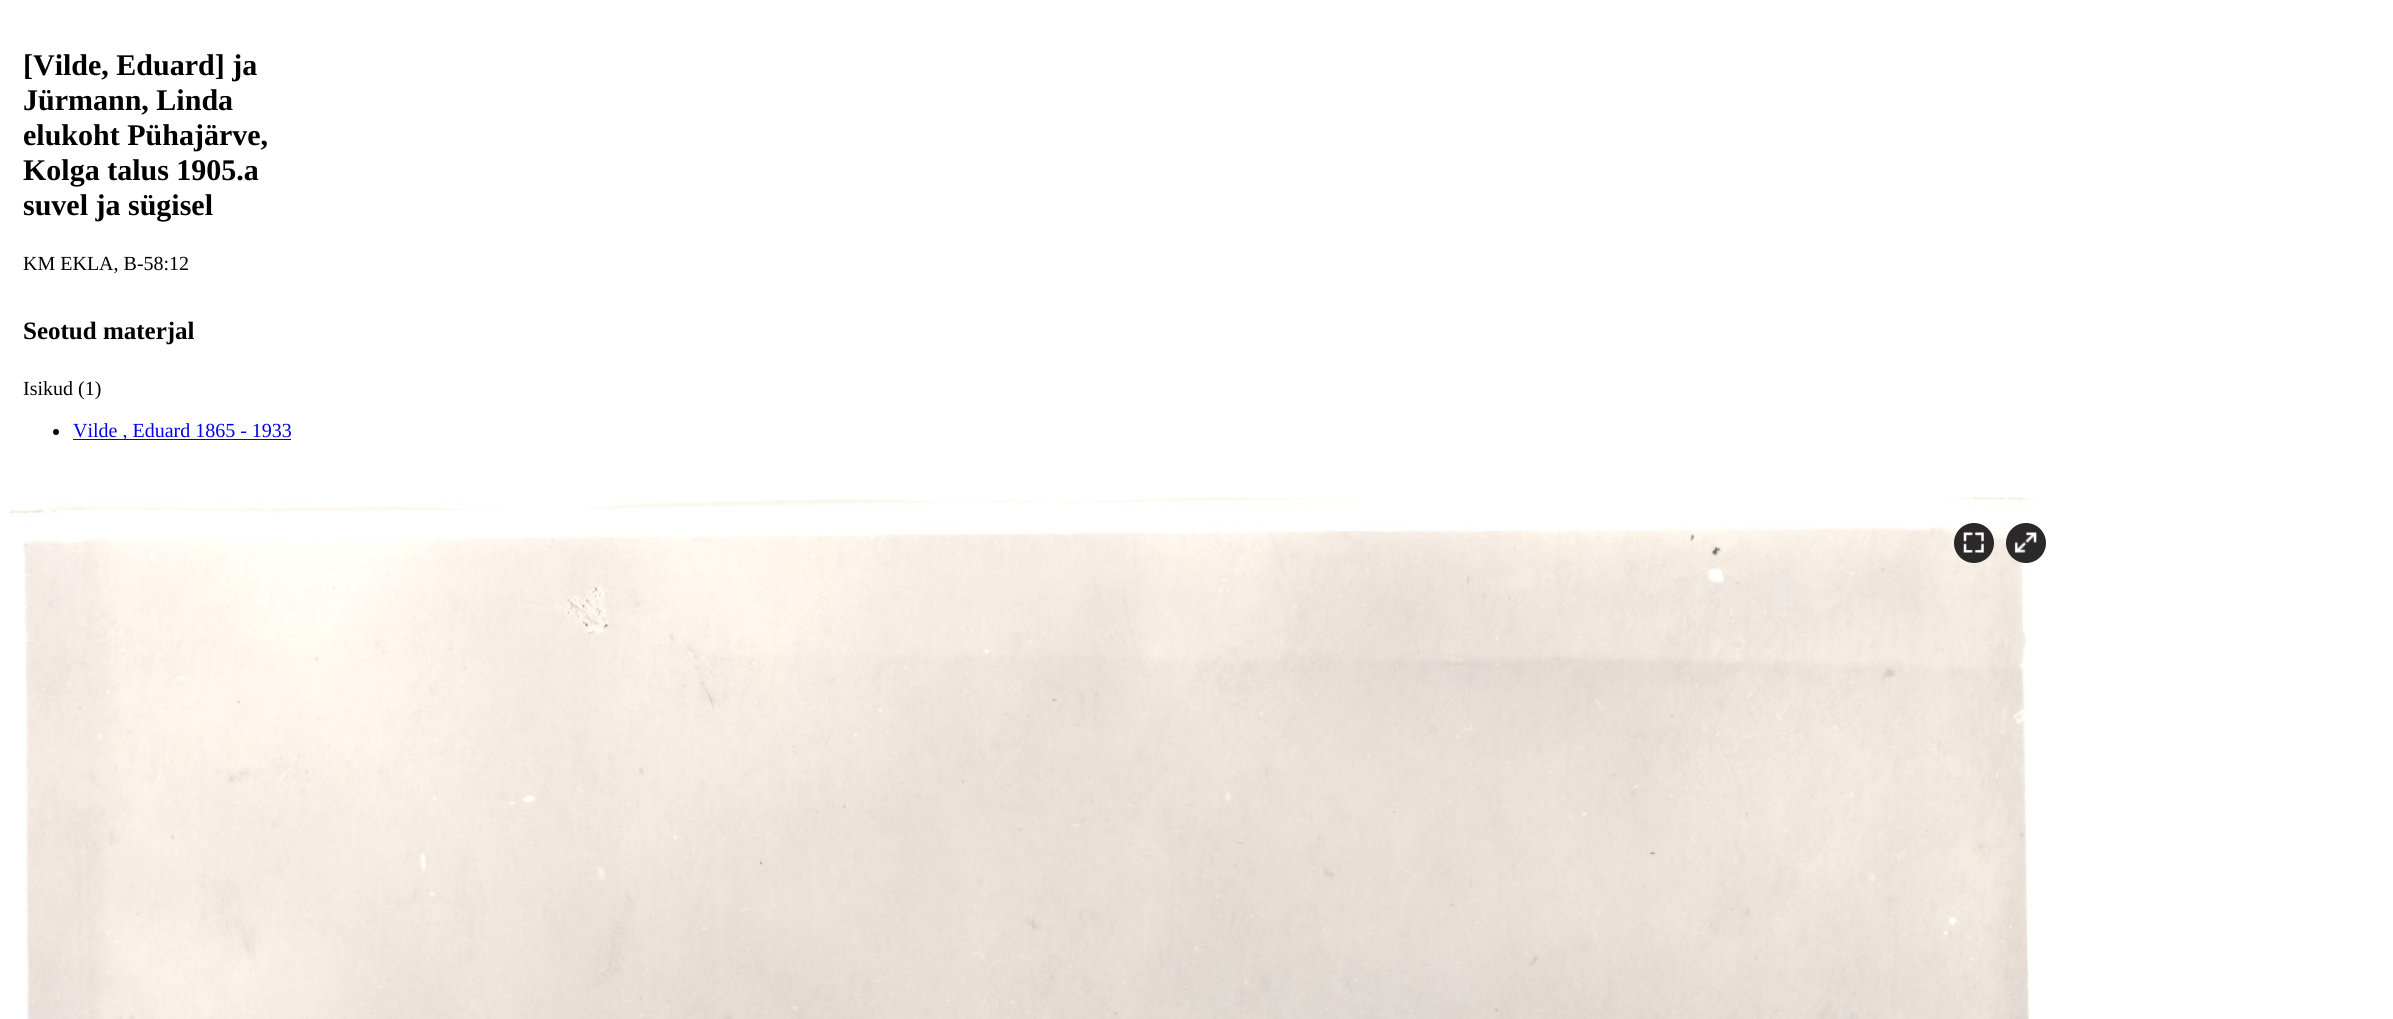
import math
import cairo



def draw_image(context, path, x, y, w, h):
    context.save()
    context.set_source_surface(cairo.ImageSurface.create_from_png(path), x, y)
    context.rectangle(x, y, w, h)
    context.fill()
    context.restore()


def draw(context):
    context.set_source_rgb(1, 1, 1)
    context.paint()
    context.set_source_rgb(0, 0, 0)
    context.arc(56, 432, 3, 0, 2 * math.pi)
    context.fill()
    context.set_source_rgb(0, 0, 238 / 255)
    context.rectangle(73, 439, 218, 1)
    context.fill()
    draw_image(context, "images/1.png", 10, 497, 2034, 522)
    context.set_source_rgb(42 / 255, 40 / 255, 40 / 255)
    context.arc(1974, 543, 20, 0, 2 * math.pi)
    context.fill()
    draw_image(context, "images/2.png", 1963, 532, 21, 21)
    context.arc(2026, 543, 20, 0, 2 * math.pi)
    context.fill()
    draw_image(context, "images/3.png", 2014, 532, 23, 21)
    context.select_font_face("Liberation Serif", cairo.FontSlant.NORMAL, cairo.FontWeight.BOLD)
    context.set_font_size(30)
    context.set_source_rgb(0, 0, 0)
    context.move_to(23, 75)
    context.show_text("[Vilde, Eduard] ja")
    context.move_to(23, 110)
    context.show_text("Jürmann, Linda")
    context.move_to(23, 145)
    context.show_text("elukoht Pühajärve,")
    context.move_to(23, 180)
    context.show_text("Kolga talus 1905.a")
    context.move_to(23, 215)
    context.show_text("suvel ja sügisel")
    context.select_font_face("Liberation Serif")
    context.set_font_size(20)
    context.move_to(23, 270)
    context.show_text("KM EKLA, B-58:12")
    context.select_font_face("Liberation Serif", cairo.FontSlant.NORMAL, cairo.FontWeight.BOLD)
    context.set_font_size(25)
    context.move_to(23, 339)
    context.show_text("Seotud materjal")
    context.select_font_face("Liberation Serif")
    context.set_font_size(20)
    context.move_to(23, 395)
    context.show_text("Isikud (1)")
    context.set_source_rgb(0, 0, 238 / 255)
    context.move_to(73, 437)
    context.show_text("Vilde , Eduard 1865 - 1933")


surface = cairo.ImageSurface(cairo.Format.RGB24, 2393, 1019)
context = cairo.Context(surface)
options = cairo.FontOptions()
options.set_hint_metrics(cairo.HintMetrics.OFF)
options.set_hint_style(cairo.HintStyle.NONE)
context.set_font_options(options)
context.set_miter_limit(4)
draw(context)
surface.write_to_png("out.png")
